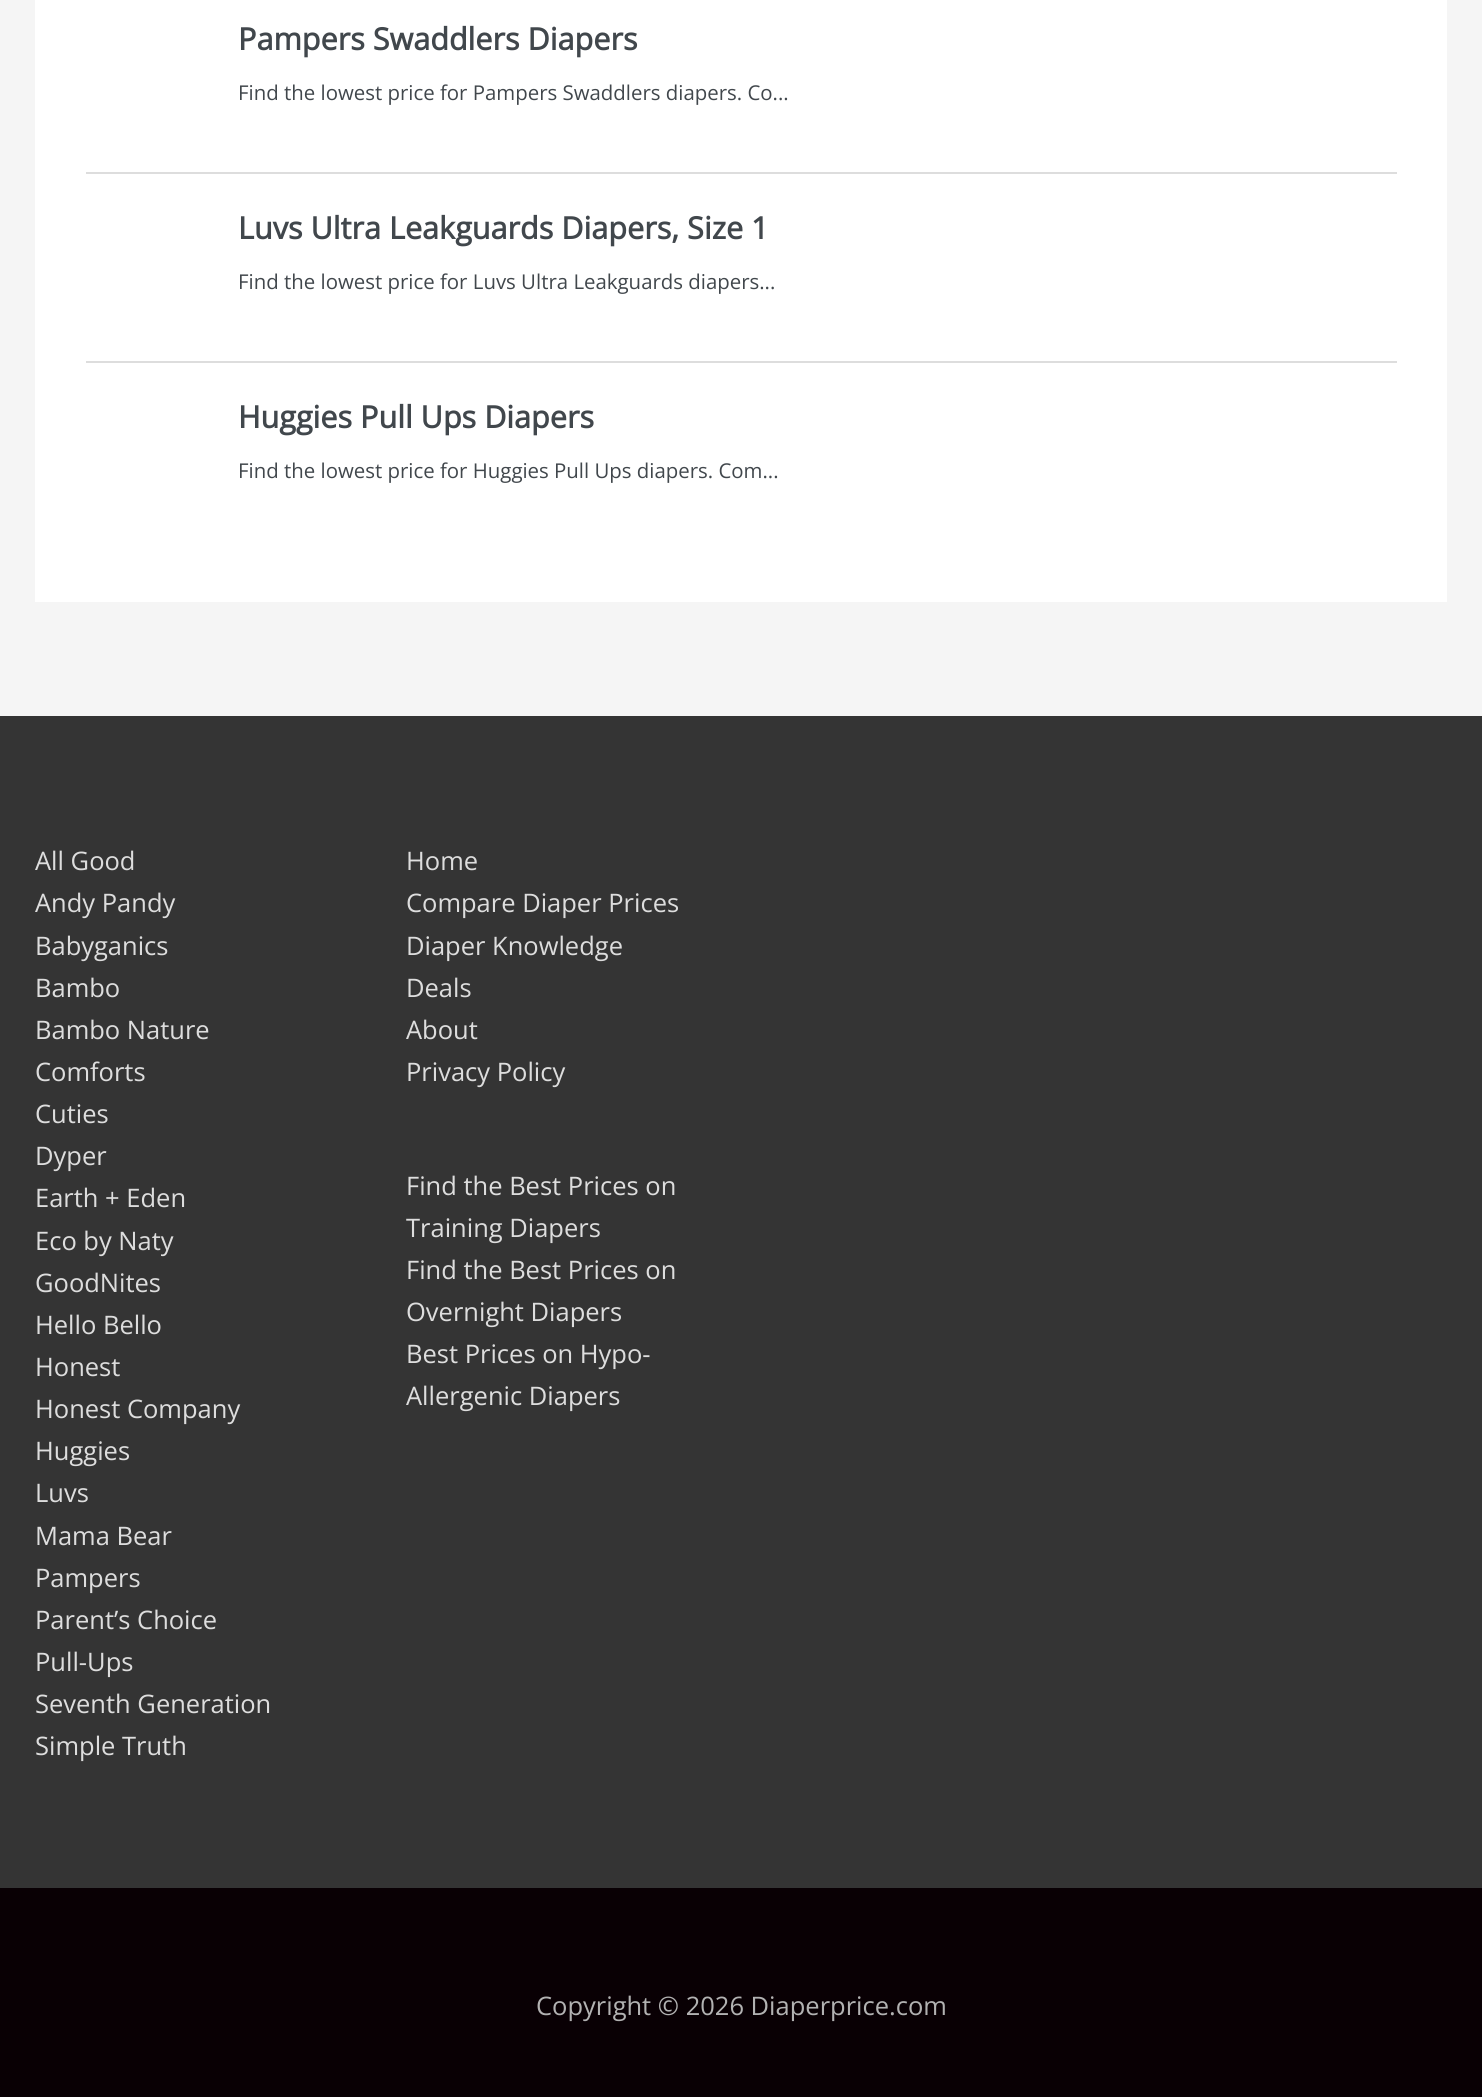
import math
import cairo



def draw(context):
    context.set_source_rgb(245 / 255, 245 / 255, 245 / 255)
    context.paint()
    context.set_source_rgb(1, 1, 1)
    context.rectangle(35, 0, 1412, 602)
    context.fill()
    context.set_source_rgb(221 / 255, 221 / 255, 221 / 255)
    context.rectangle(86, 172, 1311, 2)
    context.fill()
    context.rectangle(86, 361, 1311, 2)
    context.fill()
    context.set_source_rgb(52 / 255, 52 / 255, 52 / 255)
    context.rectangle(0, 716, 1482, 1172)
    context.fill()
    context.set_source_rgb(9 / 255, 0, 4 / 255)
    context.rectangle(0, 1888, 1482, 209)
    context.fill()
    context.select_font_face("Open Sans", cairo.FontSlant.NORMAL, cairo.FontWeight.BOLD)
    context.set_font_size(30.6)
    context.set_source_rgb(65 / 255, 71 / 255, 76 / 255)
    context.move_to(238, 50)
    context.show_text("Pampers Swaddlers Diapers")
    context.select_font_face("Open Sans")
    context.set_font_size(20.4)
    context.move_to(238, 100)
    context.show_text("Find the lowest price for Pampers Swaddlers diapers. Co...")
    context.select_font_face("Open Sans", cairo.FontSlant.NORMAL, cairo.FontWeight.BOLD)
    context.set_font_size(30.6)
    context.move_to(238, 239)
    context.show_text("Luvs Ultra Leakguards Diapers, Size 1")
    context.select_font_face("Open Sans")
    context.set_font_size(20.4)
    context.move_to(238, 289)
    context.show_text("Find the lowest price for Luvs Ultra Leakguards diapers...")
    context.select_font_face("Open Sans", cairo.FontSlant.NORMAL, cairo.FontWeight.BOLD)
    context.set_font_size(30.6)
    context.move_to(238, 428)
    context.show_text("Huggies Pull Ups Diapers")
    context.select_font_face("Open Sans")
    context.set_font_size(20.4)
    context.move_to(238, 478)
    context.show_text("Find the lowest price for Huggies Pull Ups diapers. Com...")
    context.set_font_size(25.5)
    context.set_source_rgb(221 / 255, 221 / 255, 221 / 255)
    context.move_to(35, 870)
    context.show_text("All Good")
    context.move_to(35, 912)
    context.show_text("Andy Pandy")
    context.move_to(35, 955)
    context.show_text("Babyganics")
    context.move_to(35, 997)
    context.show_text("Bambo")
    context.move_to(35, 1039)
    context.show_text("Bambo Nature")
    context.move_to(35, 1081)
    context.show_text("Comforts")
    context.move_to(35, 1123)
    context.show_text("Cuties")
    context.move_to(35, 1165)
    context.show_text("Dyper")
    context.move_to(35, 1207)
    context.show_text("Earth + Eden")
    context.move_to(35, 1250)
    context.show_text("Eco by Naty")
    context.move_to(35, 1292)
    context.show_text("GoodNites")
    context.move_to(35, 1334)
    context.show_text("Hello Bello")
    context.move_to(35, 1376)
    context.show_text("Honest")
    context.move_to(35, 1418)
    context.show_text("Honest Company")
    context.move_to(35, 1460)
    context.show_text("Huggies")
    context.move_to(35, 1502)
    context.show_text("Luvs")
    context.move_to(35, 1545)
    context.show_text("Mama Bear")
    context.move_to(35, 1587)
    context.show_text("Pampers")
    context.move_to(35, 1629)
    context.show_text("Parent’s Choice")
    context.move_to(35, 1671)
    context.show_text("Pull-Ups")
    context.move_to(35, 1713)
    context.show_text("Seventh Generation")
    context.move_to(35, 1755)
    context.show_text("Simple Truth")
    context.move_to(406, 870)
    context.show_text("Home")
    context.move_to(406, 912)
    context.show_text("Compare Diaper Prices")
    context.move_to(406, 955)
    context.show_text("Diaper Knowledge")
    context.move_to(406, 997)
    context.show_text("Deals")
    context.move_to(406, 1039)
    context.show_text("About")
    context.move_to(406, 1081)
    context.show_text("Privacy Policy")
    context.move_to(406, 1195)
    context.show_text("Find the Best Prices on")
    context.move_to(406, 1237)
    context.show_text("Training Diapers")
    context.move_to(406, 1279)
    context.show_text("Find the Best Prices on")
    context.move_to(406, 1321)
    context.show_text("Overnight Diapers")
    context.move_to(406, 1363)
    context.show_text("Best Prices on Hypo-")
    context.move_to(406, 1405)
    context.show_text("Allergenic Diapers")
    context.set_source_rgb(178 / 255, 178 / 255, 178 / 255)
    context.move_to(536, 2015)
    context.show_text("Copyright © 2026 Diaperprice.com")


surface = cairo.ImageSurface(cairo.Format.RGB24, 1482, 2097)
context = cairo.Context(surface)
options = cairo.FontOptions()
options.set_hint_metrics(cairo.HintMetrics.OFF)
options.set_hint_style(cairo.HintStyle.NONE)
context.set_font_options(options)
context.set_miter_limit(4)
draw(context)
surface.write_to_png("out.png")
